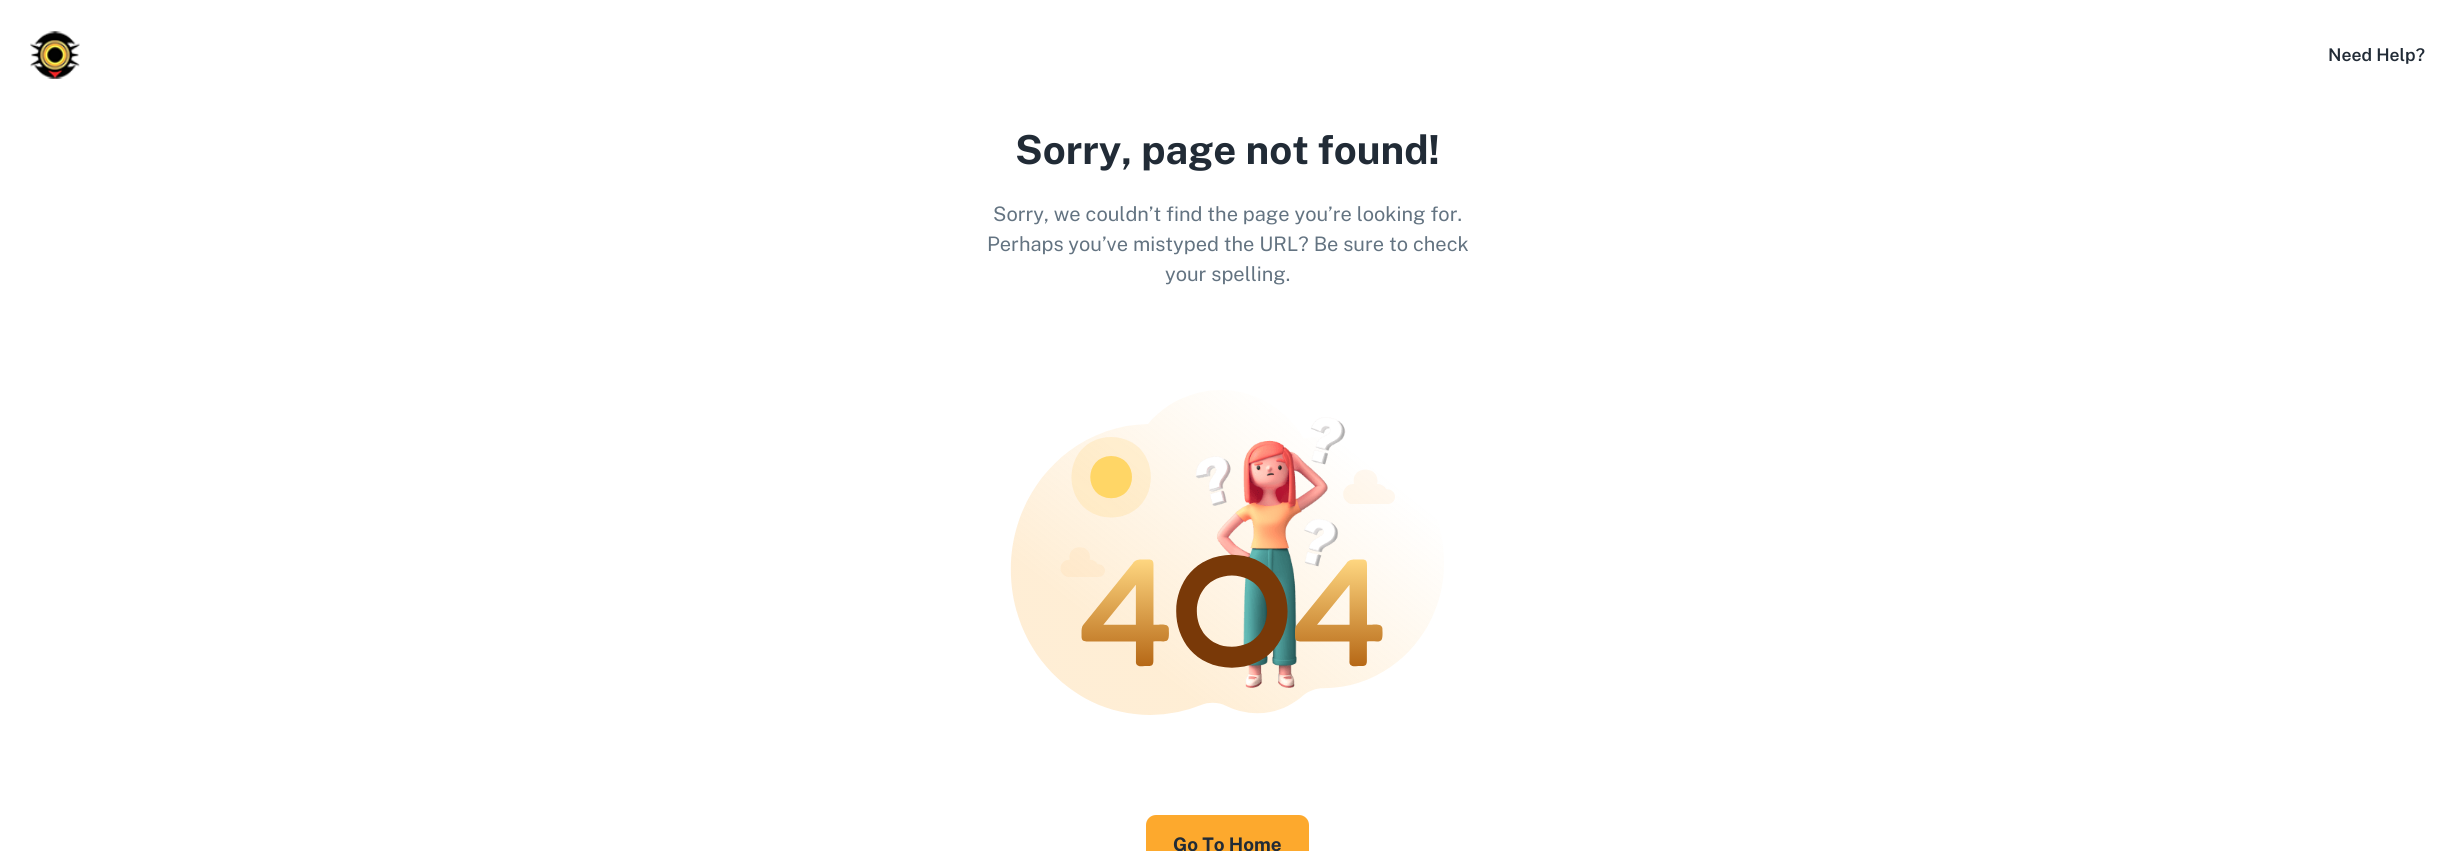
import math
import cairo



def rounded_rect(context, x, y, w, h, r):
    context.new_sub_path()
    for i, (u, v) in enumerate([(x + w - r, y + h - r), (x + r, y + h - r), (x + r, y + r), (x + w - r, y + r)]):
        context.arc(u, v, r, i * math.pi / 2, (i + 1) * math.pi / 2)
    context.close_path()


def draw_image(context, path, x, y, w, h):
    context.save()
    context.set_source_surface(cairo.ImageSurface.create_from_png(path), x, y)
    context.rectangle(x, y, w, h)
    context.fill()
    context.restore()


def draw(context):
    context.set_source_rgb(1, 1, 1)
    context.paint()
    draw_image(context, "images/1.png", 30, 31, 50, 48)
    draw_image(context, "images/2.png", 1010, 390, 434, 325)
    context.set_source_rgb(253 / 255, 169 / 255, 45 / 255)
    rounded_rect(context, 1146, 815, 163, 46, 10)
    context.fill()
    context.select_font_face("Public Sans SemiBold")
    context.set_font_size(17.5)
    context.set_source_rgb(33 / 255, 43 / 255, 54 / 255)
    context.move_to(2328, 61)
    context.show_text("Need Help?")
    context.select_font_face("Public Sans", cairo.FontSlant.NORMAL, cairo.FontWeight.BOLD)
    context.set_font_size(40)
    context.move_to(1015, 164)
    context.show_text("Sorry, page not found!")
    context.select_font_face("Public Sans")
    context.set_font_size(20)
    context.set_source_rgb(99 / 255, 115 / 255, 129 / 255)
    context.move_to(993, 221)
    context.show_text("Sorry, we couldn’t find the page you’re looking for.")
    context.move_to(987, 251)
    context.show_text("Perhaps you’ve mistyped the URL? Be sure to check")
    context.move_to(1165, 281)
    context.show_text("your spelling.")
    context.select_font_face("Public Sans", cairo.FontSlant.NORMAL, cairo.FontWeight.BOLD)
    context.set_font_size(18.75)
    context.set_source_rgb(33 / 255, 43 / 255, 54 / 255)
    context.move_to(1173, 851)
    context.show_text("Go To Home")


surface = cairo.ImageSurface(cairo.Format.RGB24, 2454, 851)
context = cairo.Context(surface)
options = cairo.FontOptions()
options.set_hint_metrics(cairo.HintMetrics.OFF)
options.set_hint_style(cairo.HintStyle.NONE)
context.set_font_options(options)
context.set_miter_limit(4)
draw(context)
surface.write_to_png("out.png")
